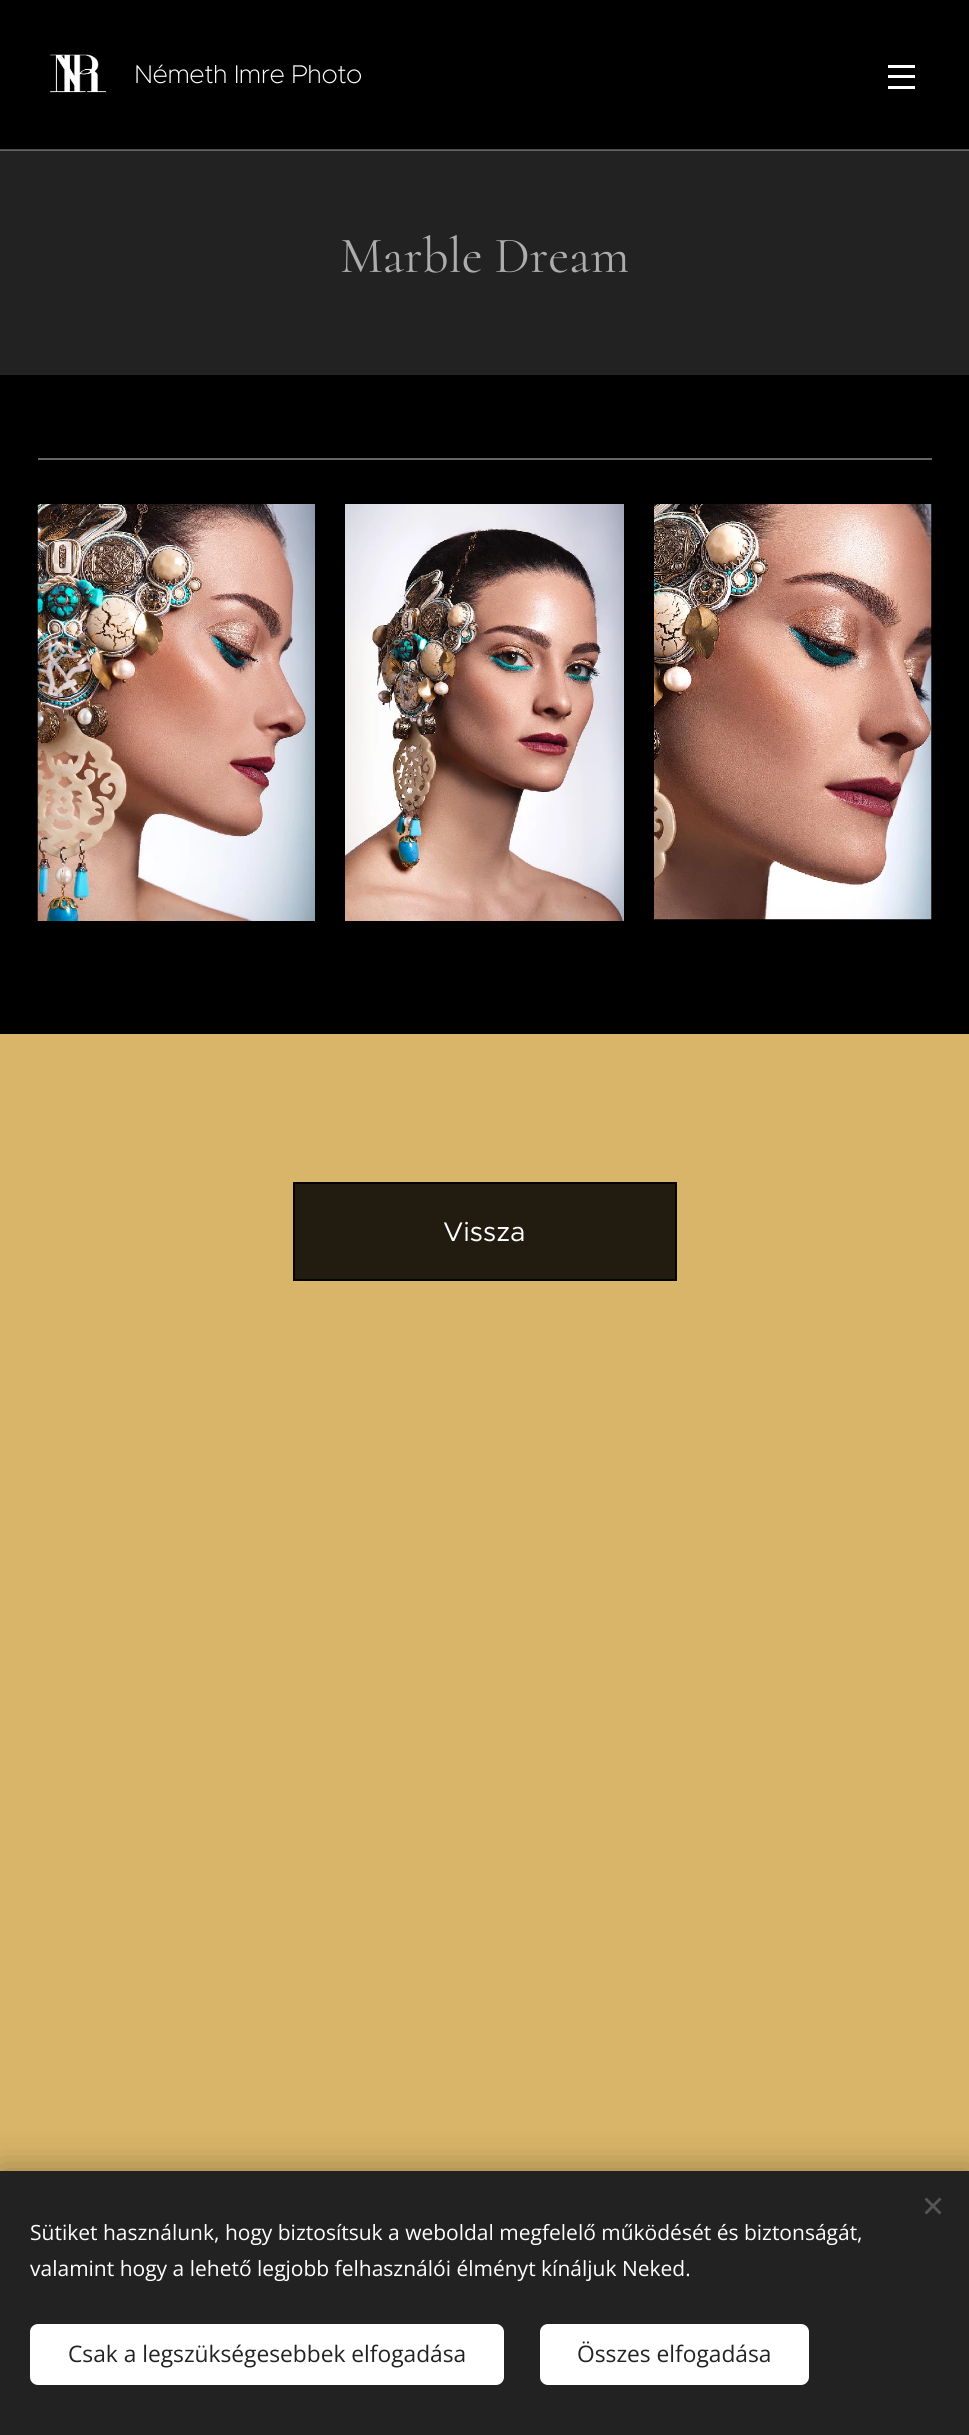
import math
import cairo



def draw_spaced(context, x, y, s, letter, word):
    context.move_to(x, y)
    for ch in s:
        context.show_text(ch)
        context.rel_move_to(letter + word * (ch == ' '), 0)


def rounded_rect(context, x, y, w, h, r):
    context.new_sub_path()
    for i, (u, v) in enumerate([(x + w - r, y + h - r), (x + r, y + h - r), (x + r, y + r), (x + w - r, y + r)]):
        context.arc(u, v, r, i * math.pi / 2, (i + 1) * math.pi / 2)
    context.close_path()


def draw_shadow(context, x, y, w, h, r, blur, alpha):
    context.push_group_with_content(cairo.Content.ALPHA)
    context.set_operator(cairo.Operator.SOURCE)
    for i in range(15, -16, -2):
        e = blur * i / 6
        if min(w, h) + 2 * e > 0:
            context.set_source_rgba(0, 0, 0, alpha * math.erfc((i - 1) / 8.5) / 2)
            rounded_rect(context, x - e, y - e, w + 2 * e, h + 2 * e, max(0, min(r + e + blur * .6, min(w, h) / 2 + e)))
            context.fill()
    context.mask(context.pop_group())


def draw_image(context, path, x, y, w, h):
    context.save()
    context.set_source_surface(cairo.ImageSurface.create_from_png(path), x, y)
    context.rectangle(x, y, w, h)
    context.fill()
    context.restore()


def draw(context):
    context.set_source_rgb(34 / 255, 34 / 255, 34 / 255)
    context.paint()
    context.set_source_rgb(0, 0, 0)
    context.rectangle(0, 0, 969, 149)
    context.fill()
    context.set_source_rgb(77 / 255, 77 / 255, 77 / 255)
    context.rectangle(0, 149, 969, 1)
    context.fill()
    draw_image(context, "images/1.png", 50, 54, 57, 39)
    context.set_source_rgb(1, 1, 1)
    context.rectangle(888, 75, 27, 3)
    context.fill()
    context.rectangle(888, 65, 27, 3)
    context.fill()
    context.rectangle(888, 86, 27, 3)
    context.fill()
    context.set_source_rgb(100 / 255, 100 / 255, 100 / 255)
    context.rectangle(0, 150, 969, 1)
    context.fill()
    context.set_source_rgb(0, 0, 0)
    context.rectangle(0, 375, 969, 659)
    context.fill()
    context.set_source_rgb(102 / 255, 102 / 255, 102 / 255)
    context.rectangle(38, 458, 894, 2)
    context.fill()
    draw_image(context, "images/2.png", 37, 504, 278, 417)
    draw_image(context, "images/3.png", 345, 504, 279, 417)
    draw_image(context, "images/4.png", 654, 504, 278, 416)
    context.set_source_rgb(217 / 255, 181 / 255, 105 / 255)
    context.rectangle(0, 1034, 969, 1137)
    context.fill()
    context.set_source_rgb(33 / 255, 27 / 255, 16 / 255)
    context.rectangle(294, 1183, 382, 97)
    context.fill_preserve()
    context.set_source_rgb(5 / 255, 4 / 255, 2 / 255)
    context.stroke()
    context.set_source_rgb(0, 0, 0)
    draw_shadow(context, 0, 2171, 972, 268, 0, 19, 0.33)
    context.set_source_rgb(34 / 255, 34 / 255, 34 / 255)
    context.rectangle(0, 2171, 969, 264)
    context.fill()
    context.set_source_rgb(85 / 255, 85 / 255, 85 / 255)
    context.new_path()
    context.move_to(924.5, 2212.5)
    context.line_to(939.5, 2197.5)
    context.line_to(941.5, 2199.5)
    context.line_to(926.5, 2214.5)
    context.close_path()
    context.fill()
    context.new_path()
    context.move_to(926.5, 2197.5)
    context.line_to(941.5, 2212.5)
    context.line_to(939.5, 2214.5)
    context.line_to(924.5, 2199.5)
    context.close_path()
    context.fill()
    context.set_source_rgb(1, 1, 1)
    rounded_rect(context, 30, 2324, 474, 61, 8)
    context.fill()
    rounded_rect(context, 540, 2324, 269, 61, 8)
    context.fill()
    context.select_font_face("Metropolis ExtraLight")
    context.set_font_size(25.75)
    draw_spaced(context, 134, 83, "Németh Imre Photo", -0.5, 0)
    context.select_font_face("Cormorant")
    context.set_font_size(51)
    context.set_source_rgb(172 / 255, 172 / 255, 172 / 255)
    context.move_to(340, 272)
    context.show_text("Marble Dream")
    context.select_font_face("Metropolis")
    context.set_font_size(27)
    context.set_source_rgb(1, 1, 1)
    context.move_to(443, 1241)
    context.show_text("Vissza")
    context.select_font_face("Open Sans")
    context.set_font_size(21)
    context.move_to(30, 2240)
    context.show_text("Sütiket használunk, hogy biztosítsuk a weboldal megfelelő működését és biztonságát,")
    context.move_to(30, 2276)
    context.show_text("valamint hogy a lehető legjobb felhasználói élményt kínáljuk Neked.")
    context.set_font_size(22.75)
    context.set_source_rgb(34 / 255, 34 / 255, 34 / 255)
    context.move_to(68, 2362)
    context.show_text("Csak a legszükségesebbek elfogadása")
    context.move_to(577, 2362)
    context.show_text("Összes elfogadása")


surface = cairo.ImageSurface(cairo.Format.RGB24, 969, 2435)
context = cairo.Context(surface)
options = cairo.FontOptions()
options.set_hint_metrics(cairo.HintMetrics.OFF)
options.set_hint_style(cairo.HintStyle.NONE)
context.set_font_options(options)
context.set_miter_limit(4)
draw(context)
surface.write_to_png("out.png")
